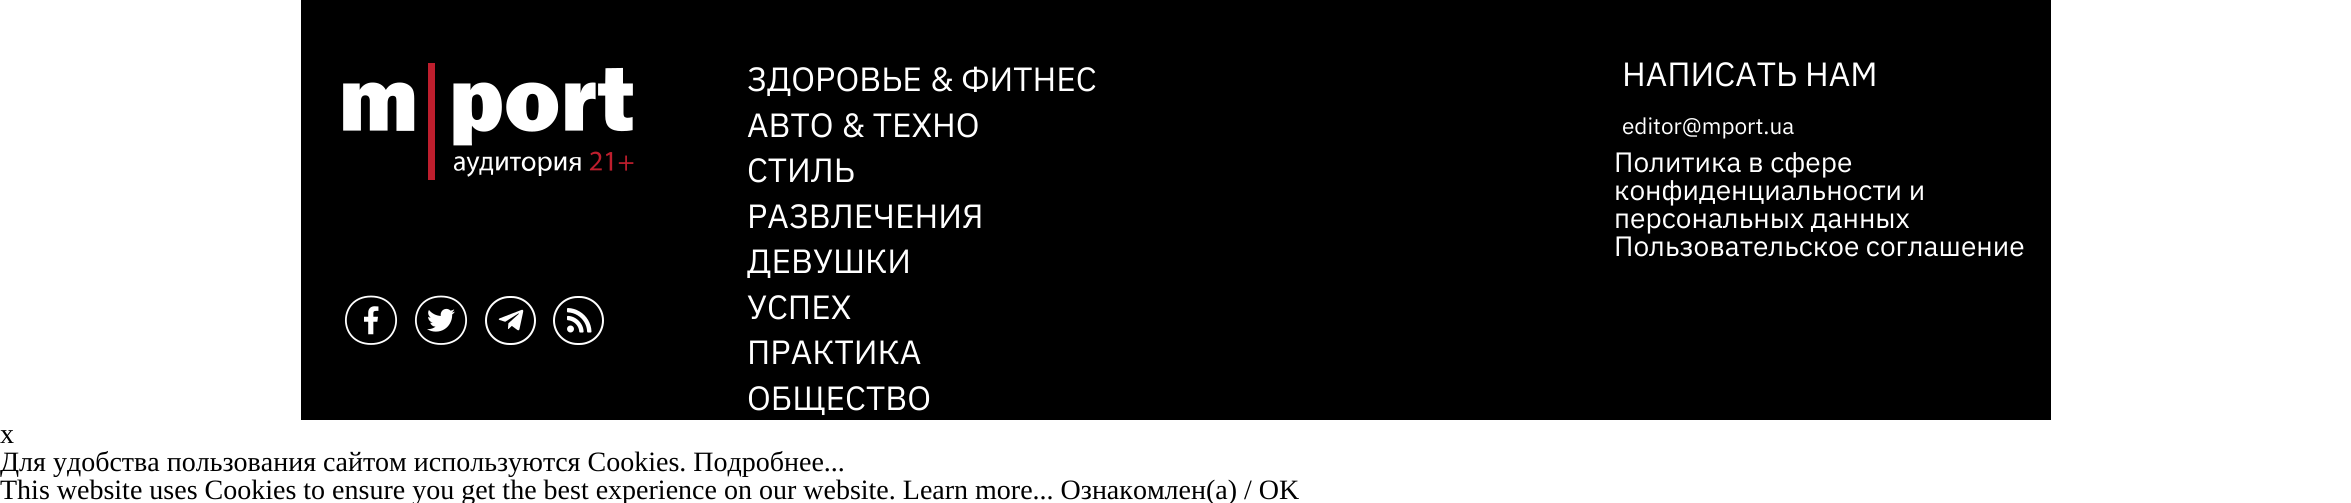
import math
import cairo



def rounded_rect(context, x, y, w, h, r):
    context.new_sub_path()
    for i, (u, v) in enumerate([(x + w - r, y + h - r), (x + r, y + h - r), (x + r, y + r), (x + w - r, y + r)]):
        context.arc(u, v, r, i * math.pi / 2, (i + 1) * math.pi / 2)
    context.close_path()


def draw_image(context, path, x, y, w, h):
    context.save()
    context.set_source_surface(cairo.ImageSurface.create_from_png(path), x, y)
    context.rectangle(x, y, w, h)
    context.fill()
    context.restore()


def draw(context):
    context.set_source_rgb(1, 1, 1)
    context.paint()
    context.set_source_rgb(0, 0, 0)
    context.rectangle(301, 0, 1750, 420)
    context.fill()
    draw_image(context, "images/1.png", 343, 63, 291, 117)
    context.new_path()
    context.move_to(371, 296.5)
    context.curve_to(404.5, 296.5, 404.5, 344, 371, 344)
    context.curve_to(337.5, 344, 337.5, 296.5, 371, 296.5)
    context.close_path()
    context.set_source_rgb(1, 1, 1)
    context.set_line_width(1.8)
    context.stroke()
    draw_image(context, "images/2.png", 364, 306, 15, 29)
    context.new_path()
    context.move_to(441, 296.5)
    context.curve_to(474.5, 296.5, 474.5, 344, 441, 344)
    context.curve_to(407.5, 344, 407.5, 296.5, 441, 296.5)
    context.close_path()
    context.stroke()
    draw_image(context, "images/3.png", 427, 308, 28, 24)
    rounded_rect(context, 486, 297, 49, 47, 23.5)
    context.set_line_width(2)
    context.stroke()
    draw_image(context, "images/4.png", 498, 309, 26, 22)
    rounded_rect(context, 554, 297, 49, 47, 23.5)
    context.stroke()
    draw_image(context, "images/5.png", 567, 308, 25, 25)
    context.select_font_face("IBM Plex Sans")
    context.set_font_size(33.6)
    context.move_to(747, 91)
    context.show_text("ЗДОРОВЬЕ & ФИТНЕС")
    context.move_to(747, 137)
    context.show_text("АВТО & ТЕХНО")
    context.move_to(747, 182)
    context.show_text("СТИЛЬ")
    context.move_to(747, 228)
    context.show_text("РАЗВЛЕЧЕНИЯ")
    context.move_to(747, 273)
    context.show_text("ДЕВУШКИ")
    context.move_to(747, 319)
    context.show_text("УСПЕХ")
    context.move_to(747, 364)
    context.show_text("ПРАКТИКА")
    context.move_to(747, 410)
    context.show_text("ОБЩЕСТВО")
    context.move_to(1622, 86)
    context.show_text("НАПИСАТЬ НАМ")
    context.set_font_size(22.5)
    context.move_to(1622, 134)
    context.show_text("editor@mport.ua")
    context.set_font_size(28)
    context.move_to(1614, 172)
    context.show_text("Политика в сфере")
    context.move_to(1614, 200)
    context.show_text("конфиденциальности и")
    context.move_to(1614, 228)
    context.show_text("персональных данных")
    context.move_to(1614, 256)
    context.show_text("Пользовательское соглашение")
    context.select_font_face("Liberation Serif")
    context.set_source_rgb(0, 0, 0)
    context.move_to(0, 443)
    context.show_text("x")
    context.move_to(0, 471)
    context.show_text("Для удобства пользования сайтом используются Cookies. Подробнее...")
    context.move_to(0, 499)
    context.show_text("This website uses Cookies to ensure you get the best experience on our website. Learn more... Ознакомлен(а) / OK")


surface = cairo.ImageSurface(cairo.Format.RGB24, 2351, 503)
context = cairo.Context(surface)
options = cairo.FontOptions()
options.set_hint_metrics(cairo.HintMetrics.OFF)
options.set_hint_style(cairo.HintStyle.NONE)
context.set_font_options(options)
context.set_miter_limit(4)
draw(context)
surface.write_to_png("out.png")
